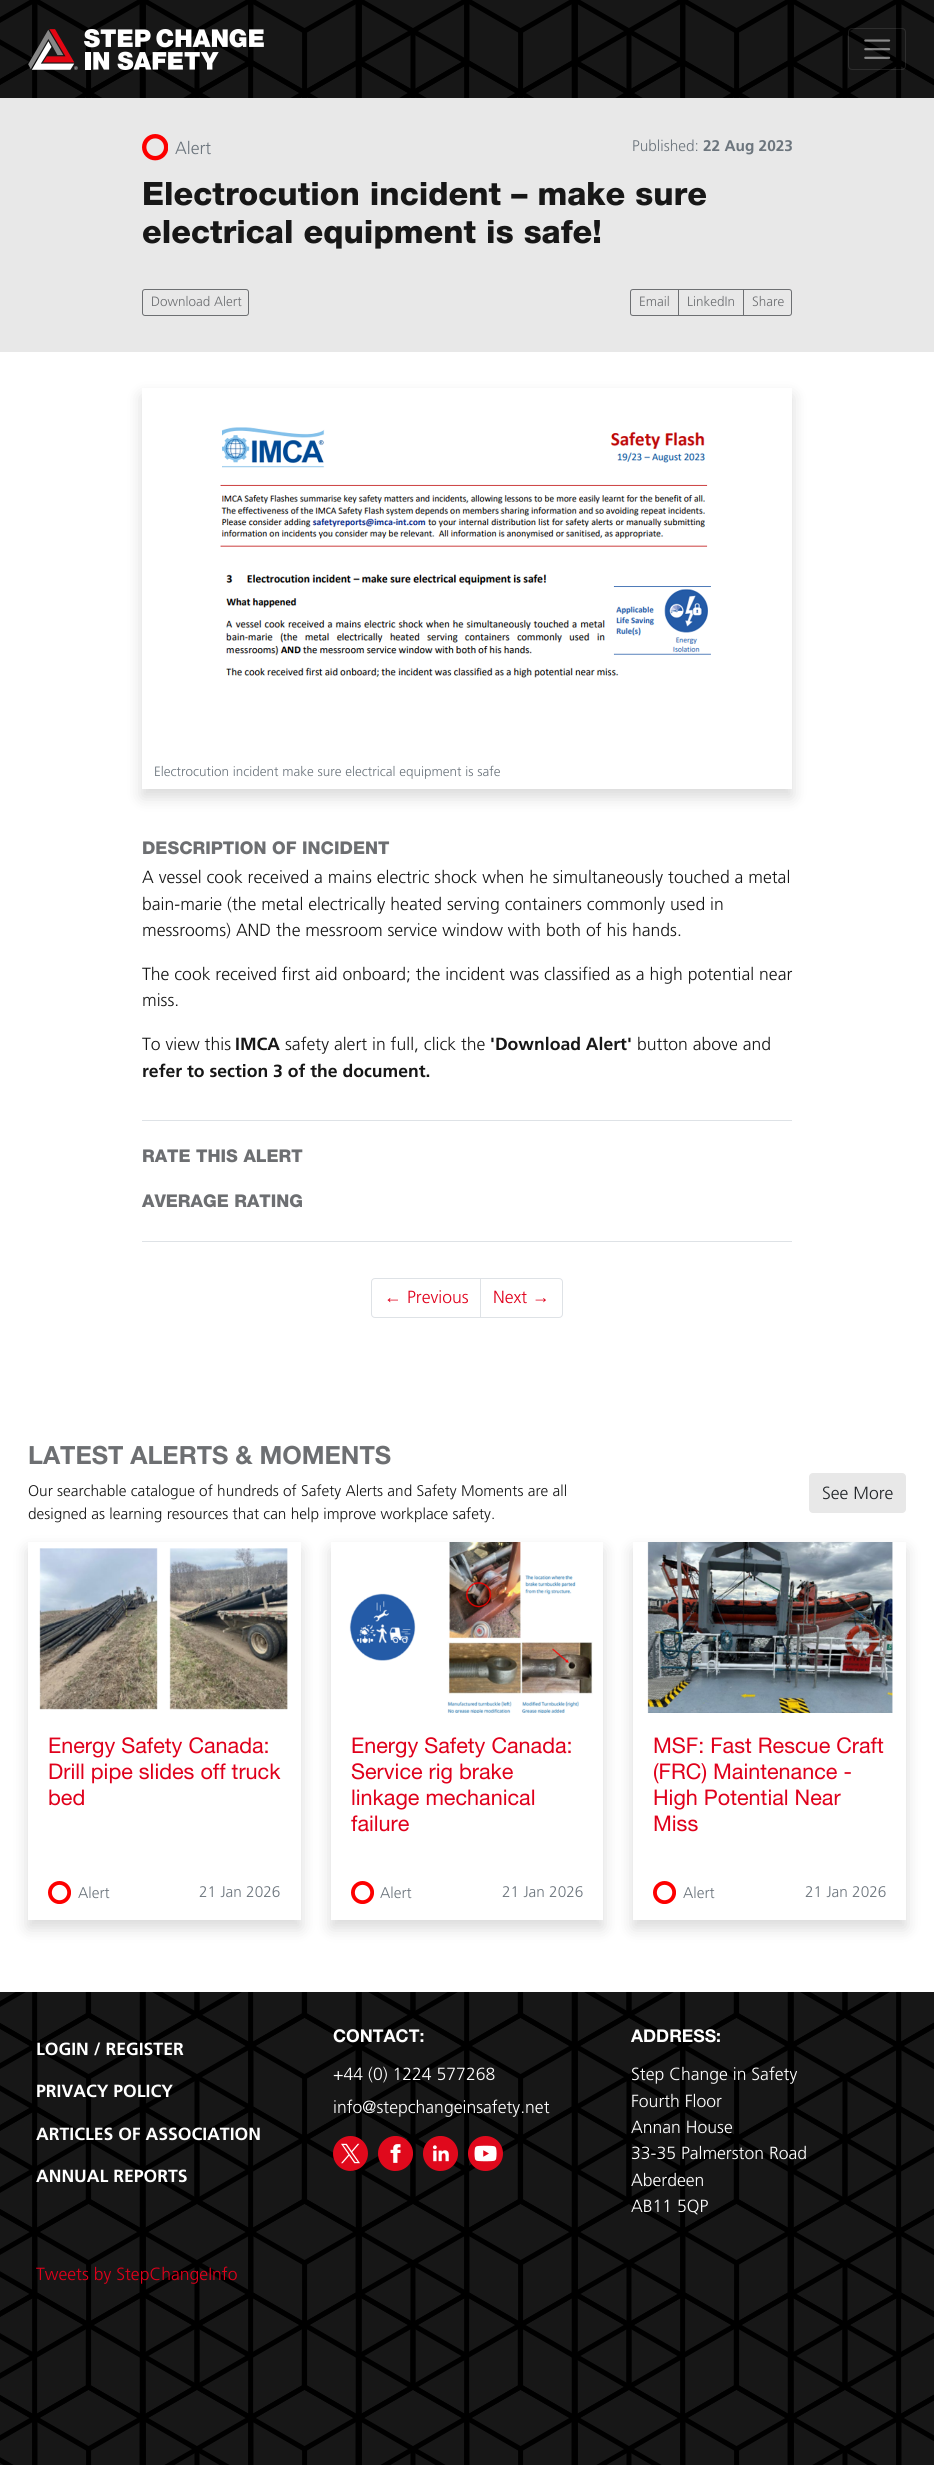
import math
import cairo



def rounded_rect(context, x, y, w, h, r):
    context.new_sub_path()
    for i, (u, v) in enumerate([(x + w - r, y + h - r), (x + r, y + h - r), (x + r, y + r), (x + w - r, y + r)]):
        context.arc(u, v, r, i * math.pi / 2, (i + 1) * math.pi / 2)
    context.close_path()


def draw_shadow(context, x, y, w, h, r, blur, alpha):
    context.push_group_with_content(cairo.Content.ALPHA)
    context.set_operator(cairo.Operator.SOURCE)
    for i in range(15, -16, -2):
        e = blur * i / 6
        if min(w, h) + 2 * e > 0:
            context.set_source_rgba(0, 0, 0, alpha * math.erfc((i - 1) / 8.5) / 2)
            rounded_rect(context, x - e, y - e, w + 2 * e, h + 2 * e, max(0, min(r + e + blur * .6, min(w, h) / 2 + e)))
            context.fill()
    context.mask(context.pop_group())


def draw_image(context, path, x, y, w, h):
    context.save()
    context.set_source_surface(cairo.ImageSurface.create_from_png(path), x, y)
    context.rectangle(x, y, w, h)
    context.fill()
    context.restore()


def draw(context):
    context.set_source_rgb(23 / 255, 23 / 255, 23 / 255)
    context.paint()
    draw_image(context, "images/1.png", 0, 0, 934, 2465)
    draw_image(context, "images/2.png", 28, 29, 236, 41)
    rounded_rect(context, 848.5, 28.5, 57, 41, 3.5)
    context.set_source_rgba(1, 1, 1, 0.1)
    context.set_line_width(1)
    context.stroke()
    draw_image(context, "images/3.png", 864, 39, 27, 20)
    context.set_source_rgb(232 / 255, 232 / 255, 232 / 255)
    context.rectangle(0, 98, 934, 254)
    context.fill()
    draw_image(context, "images/4.png", 142, 134, 26, 27)
    rounded_rect(context, 142.5, 289.5, 106, 26, 2.5)
    context.set_source_rgb(109 / 255, 111 / 255, 114 / 255)
    context.stroke()
    context.new_path()
    context.move_to(633, 289.5)
    context.line_to(678.5, 289.5)
    context.line_to(678.5, 315.5)
    context.line_to(633, 315.5)
    context.curve_to(631.5, 315.5, 630.5, 314.5, 630.5, 313)
    context.line_to(630.5, 292)
    context.curve_to(630.5, 290.5, 631.5, 289.5, 633, 289.5)
    context.close_path()
    context.stroke()
    context.rectangle(678.5, 289.5, 65, 26)
    context.stroke()
    context.new_path()
    context.move_to(743.5, 289.5)
    context.line_to(789, 289.5)
    context.curve_to(790.5, 289.5, 791.5, 290.5, 791.5, 292)
    context.line_to(791.5, 313)
    context.curve_to(791.5, 314.5, 790.5, 315.5, 789, 315.5)
    context.line_to(743.5, 315.5)
    context.close_path()
    context.stroke()
    context.set_source_rgb(1, 1, 1)
    context.rectangle(0, 352, 934, 1640)
    context.fill()
    context.save()
    context.set_fill_rule(cairo.FillRule.EVEN_ODD)
    context.new_path()
    context.move_to(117, 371)
    context.line_to(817, 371)
    context.line_to(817, 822)
    context.line_to(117, 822)
    context.close_path()
    context.move_to(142, 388)
    context.line_to(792, 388)
    context.line_to(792, 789)
    context.line_to(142, 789)
    context.close_path()
    context.clip()
    context.set_source_rgb(0, 0, 0)
    draw_shadow(context, 142, 396, 650, 401, 0, 8, 0.15)
    context.restore()
    draw_image(context, "images/5.png", 220, 427, 491, 251)
    context.set_source_rgb(222 / 255, 226 / 255, 230 / 255)
    context.rectangle(142, 1120, 650, 1)
    context.fill()
    context.rectangle(142, 1241, 650, 1)
    context.fill()
    context.new_path()
    context.move_to(375, 1278.5)
    context.line_to(480.5, 1278.5)
    context.line_to(480.5, 1317.5)
    context.line_to(375, 1317.5)
    context.curve_to(373, 1317.5, 371.5, 1316, 371.5, 1314)
    context.line_to(371.5, 1282)
    context.curve_to(371.5, 1280, 373, 1278.5, 375, 1278.5)
    context.close_path()
    context.stroke()
    context.set_source_rgb(1, 1, 1)
    context.new_path()
    context.move_to(480.5, 1278.5)
    context.line_to(559, 1278.5)
    context.curve_to(561, 1278.5, 562.5, 1280, 562.5, 1282)
    context.line_to(562.5, 1314)
    context.curve_to(562.5, 1316, 561, 1317.5, 559, 1317.5)
    context.line_to(480.5, 1317.5)
    context.close_path()
    context.fill_preserve()
    context.set_source_rgb(222 / 255, 226 / 255, 230 / 255)
    context.stroke()
    context.set_source_rgb(232 / 255, 232 / 255, 232 / 255)
    rounded_rect(context, 809.5, 1473.5, 96, 39, 3.5)
    context.fill_preserve()
    context.stroke()
    context.save()
    context.set_fill_rule(cairo.FillRule.EVEN_ODD)
    context.new_path()
    context.move_to(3, 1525)
    context.line_to(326, 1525)
    context.line_to(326, 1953)
    context.line_to(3, 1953)
    context.close_path()
    context.move_to(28, 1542)
    context.line_to(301, 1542)
    context.line_to(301, 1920)
    context.line_to(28, 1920)
    context.close_path()
    context.clip()
    context.set_source_rgb(0, 0, 0)
    draw_shadow(context, 28, 1550, 273, 378, 0, 8, 0.15)
    context.restore()
    draw_image(context, "images/6.png", 39, 1548, 249, 162)
    draw_image(context, "images/7.png", 48, 1881, 23, 23)
    context.save()
    context.set_fill_rule(cairo.FillRule.EVEN_ODD)
    context.new_path()
    context.move_to(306, 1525)
    context.line_to(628, 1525)
    context.line_to(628, 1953)
    context.line_to(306, 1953)
    context.close_path()
    context.move_to(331, 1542)
    context.line_to(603, 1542)
    context.line_to(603, 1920)
    context.line_to(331, 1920)
    context.close_path()
    context.clip()
    context.set_source_rgb(0, 0, 0)
    draw_shadow(context, 331, 1550, 272, 378, 0, 8, 0.15)
    context.restore()
    draw_image(context, "images/8.png", 349, 1542, 244, 171)
    draw_image(context, "images/7.png", 351, 1881, 23, 23)
    context.save()
    context.set_fill_rule(cairo.FillRule.EVEN_ODD)
    context.new_path()
    context.move_to(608, 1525)
    context.line_to(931, 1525)
    context.line_to(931, 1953)
    context.line_to(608, 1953)
    context.close_path()
    context.move_to(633, 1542)
    context.line_to(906, 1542)
    context.line_to(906, 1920)
    context.line_to(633, 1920)
    context.close_path()
    context.clip()
    context.set_source_rgb(0, 0, 0)
    draw_shadow(context, 633, 1550, 273, 378, 0, 8, 0.15)
    context.restore()
    draw_image(context, "images/9.png", 647, 1542, 246, 171)
    draw_image(context, "images/7.png", 653, 1881, 23, 23)
    draw_image(context, "images/10.png", 333, 2136, 35, 35)
    draw_image(context, "images/11.png", 378, 2136, 35, 35)
    draw_image(context, "images/12.png", 423, 2136, 35, 35)
    draw_image(context, "images/13.png", 468, 2136, 35, 35)
    context.select_font_face("Frutiger Light")
    context.set_font_size(17.6)
    context.set_source_rgb(108 / 255, 117 / 255, 125 / 255)
    context.move_to(175, 154)
    context.show_text("Alert")
    context.set_font_size(15.4)
    context.move_to(632, 151)
    context.show_text("Published:")
    context.select_font_face("Frutiger", cairo.FontSlant.NORMAL, cairo.FontWeight.BOLD)
    context.move_to(703, 151)
    context.show_text("22 Aug 2023")
    context.select_font_face("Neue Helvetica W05 Black")
    context.set_font_size(32.2)
    context.set_source_rgb(23 / 255, 23 / 255, 23 / 255)
    context.move_to(142, 205)
    context.show_text("Electrocution incident – make sure")
    context.move_to(142, 243)
    context.show_text("electrical equipment is safe!")
    context.select_font_face("Frutiger Light")
    context.set_font_size(13.5)
    context.set_source_rgb(109 / 255, 111 / 255, 114 / 255)
    context.move_to(151, 306)
    context.show_text("Download Alert")
    context.move_to(639, 306)
    context.show_text("Email")
    context.move_to(687, 306)
    context.show_text("LinkedIn")
    context.move_to(752, 306)
    context.show_text("Share")
    context.set_source_rgb(108 / 255, 117 / 255, 125 / 255)
    context.move_to(154, 776)
    context.show_text("Electrocution incident make sure electrical equipment is safe")
    context.select_font_face("Neue Helvetica W05 Black")
    context.set_font_size(17.6)
    context.set_source_rgb(109 / 255, 111 / 255, 114 / 255)
    context.move_to(142, 854)
    context.show_text("DESCRIPTION OF INCIDENT")
    context.select_font_face("Frutiger Light")
    context.set_source_rgb(23 / 255, 23 / 255, 23 / 255)
    context.move_to(142, 883)
    context.show_text("A vessel cook received a mains electric shock when he simultaneously touched a metal")
    context.move_to(142, 910)
    context.show_text("bain-marie (the metal electrically heated serving containers commonly used in")
    context.move_to(142, 936)
    context.show_text("messrooms) AND the messroom service window with both of his hands.")
    context.move_to(142, 980)
    context.show_text("The cook received first aid onboard; the incident was classified as a high potential near")
    context.move_to(142, 1006)
    context.show_text("miss.")
    context.move_to(142, 1050)
    context.show_text("To view this")
    context.select_font_face("Frutiger", cairo.FontSlant.NORMAL, cairo.FontWeight.BOLD)
    context.move_to(235, 1050)
    context.show_text("IMCA")
    context.select_font_face("Frutiger Light")
    context.move_to(285, 1050)
    context.show_text("safety alert in full, click the")
    context.select_font_face("Frutiger", cairo.FontSlant.NORMAL, cairo.FontWeight.BOLD)
    context.move_to(490, 1050)
    context.show_text("'Download Alert'")
    context.select_font_face("Frutiger Light")
    context.move_to(637, 1050)
    context.show_text("button above and")
    context.select_font_face("Frutiger", cairo.FontSlant.NORMAL, cairo.FontWeight.BOLD)
    context.move_to(142, 1077)
    context.show_text("refer to section 3 of the document.")
    context.select_font_face("Neue Helvetica W05 Black")
    context.set_source_rgb(109 / 255, 111 / 255, 114 / 255)
    context.move_to(142, 1162)
    context.show_text("RATE THIS ALERT")
    context.move_to(142, 1207)
    context.show_text("AVERAGE RATING")
    context.select_font_face("Liberation Sans")
    context.set_source_rgb(224 / 255, 0, 27 / 255)
    context.move_to(384, 1303)
    context.show_text("←")
    context.select_font_face("Frutiger Light")
    context.move_to(407, 1303)
    context.show_text("Previous")
    context.move_to(493, 1303)
    context.show_text("Next")
    context.select_font_face("Liberation Sans")
    context.move_to(532, 1303)
    context.show_text("→")
    context.select_font_face("Neue Helvetica W05", cairo.FontSlant.NORMAL, cairo.FontWeight.BOLD)
    context.set_font_size(25.1)
    context.set_source_rgb(109 / 255, 111 / 255, 114 / 255)
    context.move_to(28, 1464)
    context.show_text("LATEST ALERTS & MOMENTS")
    context.select_font_face("Frutiger Light")
    context.set_font_size(15.4)
    context.set_source_rgb(23 / 255, 23 / 255, 23 / 255)
    context.move_to(28, 1496)
    context.show_text("Our searchable catalogue of hundreds of Safety Alerts and Safety Moments are all")
    context.move_to(28, 1519)
    context.show_text("designed as learning resources that can help improve workplace safety.")
    context.set_font_size(17.6)
    context.set_source_rgb(33 / 255, 37 / 255, 41 / 255)
    context.move_to(822, 1499)
    context.show_text("See More")
    context.select_font_face("Neue Helvetica W05")
    context.set_font_size(21.6)
    context.set_source_rgb(224 / 255, 0, 27 / 255)
    context.move_to(48, 1753)
    context.show_text("Energy Safety Canada:")
    context.move_to(48, 1779)
    context.show_text("Drill pipe slides off truck")
    context.move_to(48, 1805)
    context.show_text("bed")
    context.select_font_face("Frutiger Light")
    context.set_font_size(15.4)
    context.set_source_rgb(108 / 255, 117 / 255, 125 / 255)
    context.move_to(78, 1898)
    context.show_text("Alert")
    context.move_to(199, 1897)
    context.show_text("21 Jan 2026")
    context.select_font_face("Neue Helvetica W05")
    context.set_font_size(21.6)
    context.set_source_rgb(224 / 255, 0, 27 / 255)
    context.move_to(351, 1753)
    context.show_text("Energy Safety Canada:")
    context.move_to(351, 1779)
    context.show_text("Service rig brake")
    context.move_to(351, 1805)
    context.show_text("linkage mechanical")
    context.move_to(351, 1831)
    context.show_text("failure")
    context.select_font_face("Frutiger Light")
    context.set_font_size(15.4)
    context.set_source_rgb(108 / 255, 117 / 255, 125 / 255)
    context.move_to(380, 1898)
    context.show_text("Alert")
    context.move_to(502, 1897)
    context.show_text("21 Jan 2026")
    context.select_font_face("Neue Helvetica W05")
    context.set_font_size(21.6)
    context.set_source_rgb(224 / 255, 0, 27 / 255)
    context.move_to(653, 1753)
    context.show_text("MSF: Fast Rescue Craft")
    context.move_to(653, 1779)
    context.show_text("(FRC) Maintenance -")
    context.move_to(653, 1805)
    context.show_text("High Potential Near")
    context.move_to(653, 1831)
    context.show_text("Miss")
    context.select_font_face("Frutiger Light")
    context.set_font_size(15.4)
    context.set_source_rgb(108 / 255, 117 / 255, 125 / 255)
    context.move_to(683, 1898)
    context.show_text("Alert")
    context.move_to(805, 1897)
    context.show_text("21 Jan 2026")
    context.select_font_face("Frutiger", cairo.FontSlant.NORMAL, cairo.FontWeight.BOLD)
    context.set_font_size(17.6)
    context.set_source_rgb(1, 1, 1)
    context.move_to(36, 2055)
    context.show_text("LOGIN / REGISTER")
    context.move_to(36, 2097)
    context.show_text("PRIVACY POLICY")
    context.move_to(36, 2140)
    context.show_text("ARTICLES OF ASSOCIATION")
    context.move_to(36, 2182)
    context.show_text("ANNUAL REPORTS")
    context.select_font_face("Neue Helvetica W05", cairo.FontSlant.NORMAL, cairo.FontWeight.BOLD)
    context.move_to(333, 2042)
    context.show_text("CONTACT:")
    context.select_font_face("Frutiger Light")
    context.move_to(333, 2080)
    context.show_text("+44 (0) 1224 577268")
    context.move_to(333, 2113)
    context.show_text("info@stepchangeinsafety.net")
    context.select_font_face("Neue Helvetica W05", cairo.FontSlant.NORMAL, cairo.FontWeight.BOLD)
    context.move_to(631, 2042)
    context.show_text("ADDRESS:")
    context.select_font_face("Frutiger Light")
    context.move_to(631, 2080)
    context.show_text("Step Change in Safety")
    context.move_to(631, 2107)
    context.show_text("Fourth Floor")
    context.move_to(631, 2133)
    context.show_text("Annan House")
    context.move_to(631, 2159)
    context.show_text("33-35 Palmerston Road")
    context.move_to(631, 2186)
    context.show_text("Aberdeen")
    context.move_to(631, 2212)
    context.show_text("AB11 5QP")
    context.set_source_rgb(224 / 255, 0, 27 / 255)
    context.move_to(36, 2280)
    context.show_text("Tweets by StepChangeInfo")


surface = cairo.ImageSurface(cairo.Format.RGB24, 934, 2465)
context = cairo.Context(surface)
options = cairo.FontOptions()
options.set_hint_metrics(cairo.HintMetrics.OFF)
options.set_hint_style(cairo.HintStyle.NONE)
context.set_font_options(options)
context.set_miter_limit(4)
draw(context)
surface.write_to_png("out.png")
